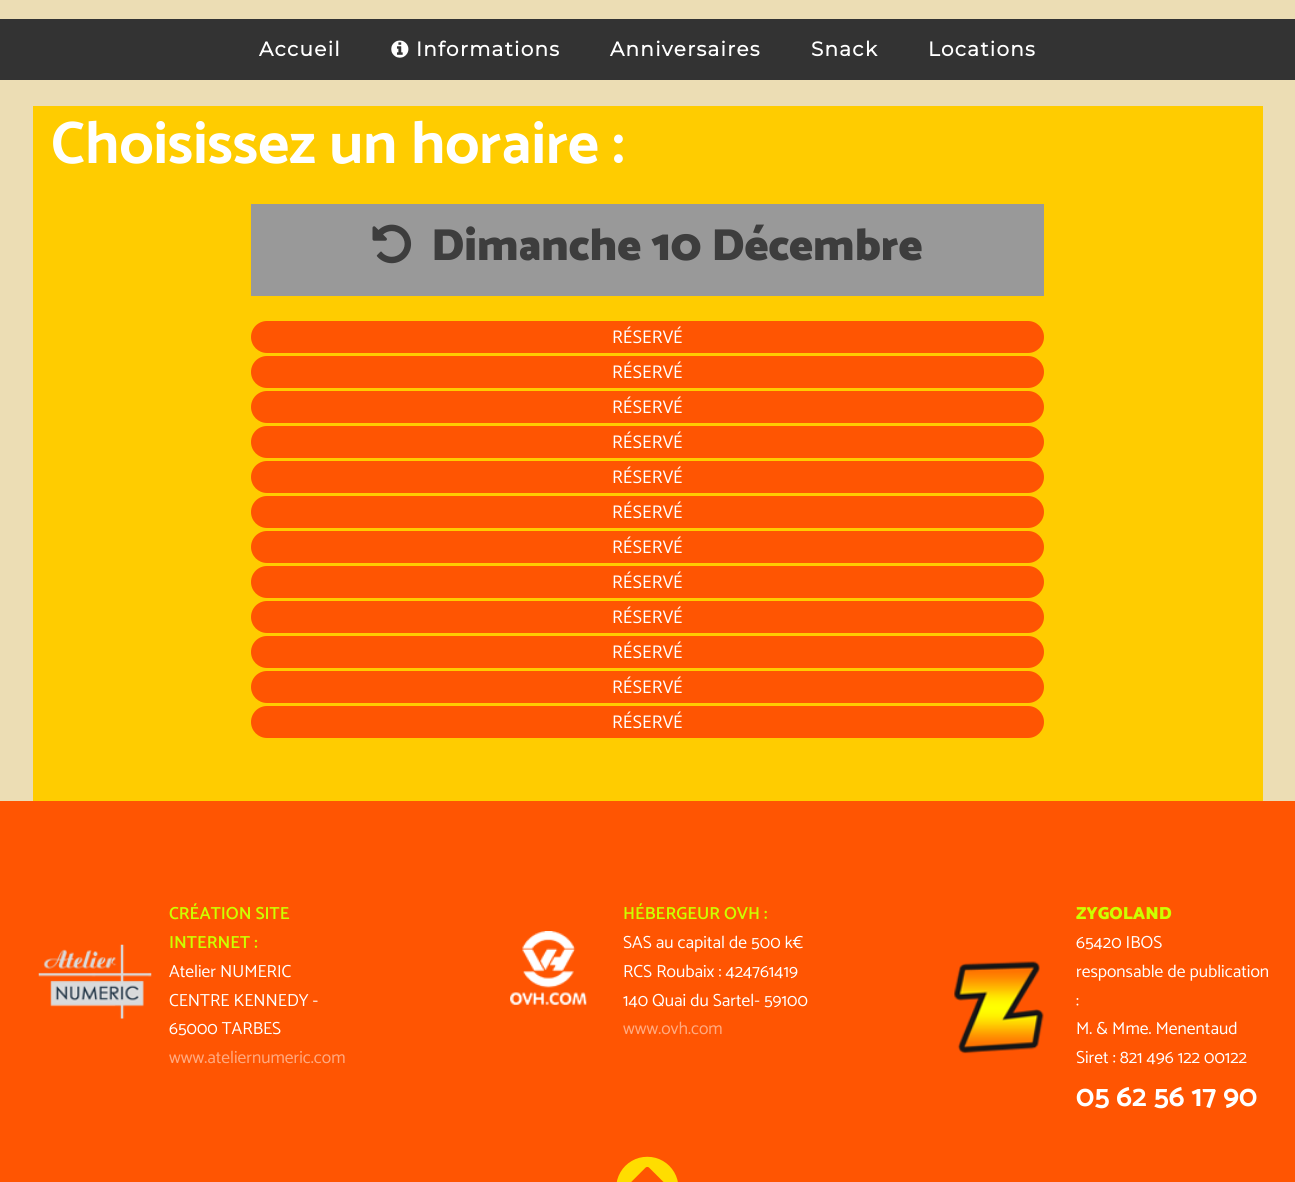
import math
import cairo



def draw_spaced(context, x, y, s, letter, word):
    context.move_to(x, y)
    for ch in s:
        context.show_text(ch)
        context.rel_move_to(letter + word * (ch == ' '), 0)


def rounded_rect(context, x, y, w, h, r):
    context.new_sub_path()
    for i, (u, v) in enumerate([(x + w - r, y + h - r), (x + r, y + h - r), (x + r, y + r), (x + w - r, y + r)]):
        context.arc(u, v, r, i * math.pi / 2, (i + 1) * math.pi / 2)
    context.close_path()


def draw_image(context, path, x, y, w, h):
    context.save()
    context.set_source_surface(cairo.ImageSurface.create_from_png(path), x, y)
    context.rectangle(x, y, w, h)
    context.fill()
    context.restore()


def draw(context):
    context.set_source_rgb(236 / 255, 221 / 255, 180 / 255)
    context.paint()
    context.set_source_rgb(51 / 255, 51 / 255, 51 / 255)
    context.rectangle(0, 19, 1295, 61)
    context.fill()
    draw_image(context, "images/1.png", 391, 40, 18, 18)
    context.set_source_rgb(1, 204 / 255, 0)
    context.rectangle(33, 106, 1230, 695)
    context.fill()
    context.set_source_rgb(153 / 255, 153 / 255, 153 / 255)
    context.rectangle(251, 204, 793, 92)
    context.fill()
    draw_image(context, "images/2.png", 372, 224, 40, 40)
    context.set_source_rgb(1, 85 / 255, 2 / 255)
    rounded_rect(context, 251, 321, 793, 32, 16)
    context.fill()
    rounded_rect(context, 251, 356, 793, 32, 16)
    context.fill()
    rounded_rect(context, 251, 391, 793, 32, 16)
    context.fill()
    rounded_rect(context, 251, 426, 793, 32, 16)
    context.fill()
    rounded_rect(context, 251, 461, 793, 32, 16)
    context.fill()
    rounded_rect(context, 251, 496, 793, 32, 16)
    context.fill()
    rounded_rect(context, 251, 531, 793, 32, 16)
    context.fill()
    rounded_rect(context, 251, 566, 793, 32, 16)
    context.fill()
    rounded_rect(context, 251, 601, 793, 32, 16)
    context.fill()
    rounded_rect(context, 251, 636, 793, 32, 16)
    context.fill()
    rounded_rect(context, 251, 671, 793, 32, 16)
    context.fill()
    rounded_rect(context, 251, 706, 793, 32, 16)
    context.fill()
    context.rectangle(0, 801, 1295, 381)
    context.fill()
    draw_image(context, "images/3.png", 38, 944, 114, 75)
    draw_image(context, "images/4.png", 510, 931, 77, 74)
    draw_image(context, "images/5.png", 953, 961, 91, 93)
    draw_image(context, "images/6.png", 616, 1156, 62, 26)
    context.select_font_face("Montserrat", cairo.FontSlant.NORMAL, cairo.FontWeight.BOLD)
    context.set_font_size(20)
    context.set_source_rgb(1, 1, 1)
    draw_spaced(context, 259, 56, "Accueil", 1.25, 0)
    draw_spaced(context, 416, 56, "Informations", 1.25, 0)
    draw_spaced(context, 610, 56, "Anniversaires", 1.25, 0)
    draw_spaced(context, 811, 56, "Snack", 1.25, 0)
    draw_spaced(context, 928, 56, "Locations", 1.25, 0)
    context.select_font_face("Catamaran", cairo.FontSlant.NORMAL, cairo.FontWeight.BOLD)
    context.set_font_size(60)
    context.move_to(51, 163)
    context.show_text("Choisissez un horaire :")
    context.select_font_face("Catamaran Black")
    context.set_font_size(45)
    context.set_source_rgb(61 / 255, 61 / 255, 61 / 255)
    context.move_to(431, 260)
    context.show_text("Dimanche 10 Décembre")
    context.select_font_face("Open Sans")
    context.set_font_size(17.5)
    context.set_source_rgb(1, 1, 1)
    context.move_to(612, 343)
    context.show_text("RÉSERVÉ")
    context.move_to(612, 378)
    context.show_text("RÉSERVÉ")
    context.move_to(612, 413)
    context.show_text("RÉSERVÉ")
    context.move_to(612, 448)
    context.show_text("RÉSERVÉ")
    context.move_to(612, 483)
    context.show_text("RÉSERVÉ")
    context.move_to(612, 518)
    context.show_text("RÉSERVÉ")
    context.move_to(612, 553)
    context.show_text("RÉSERVÉ")
    context.move_to(612, 588)
    context.show_text("RÉSERVÉ")
    context.move_to(612, 623)
    context.show_text("RÉSERVÉ")
    context.move_to(612, 658)
    context.show_text("RÉSERVÉ")
    context.move_to(612, 693)
    context.show_text("RÉSERVÉ")
    context.move_to(612, 728)
    context.show_text("RÉSERVÉ")
    context.select_font_face("Catamaran SemiBold")
    context.set_source_rgb(204 / 255, 1, 0)
    context.move_to(169, 919)
    context.show_text("CRÉATION SITE")
    context.move_to(169, 948)
    context.show_text("INTERNET :")
    context.select_font_face("Catamaran")
    context.set_source_rgb(1, 1, 1)
    context.move_to(169, 977)
    context.show_text("Atelier NUMERIC")
    context.move_to(169, 1006)
    context.show_text("CENTRE KENNEDY -")
    context.move_to(169, 1034)
    context.show_text("65000 TARBES")
    context.set_source_rgb(1, 170 / 255, 129 / 255)
    context.move_to(169, 1063)
    context.show_text("www.ateliernumeric.com")
    context.select_font_face("Catamaran SemiBold")
    context.set_source_rgb(204 / 255, 1, 0)
    context.move_to(623, 919)
    context.show_text("HÉBERGEUR OVH :")
    context.select_font_face("Catamaran")
    context.set_source_rgb(1, 1, 1)
    context.move_to(623, 948)
    context.show_text("SAS au capital de 500 k€")
    context.move_to(623, 977)
    context.show_text("RCS Roubaix : 424761419")
    context.move_to(623, 1006)
    context.show_text("140 Quai du Sartel- 59100")
    context.set_source_rgb(1, 170 / 255, 129 / 255)
    context.move_to(623, 1034)
    context.show_text("www.ovh.com")
    context.select_font_face("Catamaran Black")
    context.set_source_rgb(204 / 255, 1, 0)
    context.move_to(1076, 919)
    context.show_text("ZYGOLAND")
    context.select_font_face("Catamaran")
    context.set_source_rgb(1, 1, 1)
    context.move_to(1076, 948)
    context.show_text("65420 IBOS")
    context.move_to(1076, 977)
    context.show_text("responsable de publication")
    context.move_to(1076, 1006)
    context.show_text(":")
    context.move_to(1076, 1034)
    context.show_text("M. & Mme. Menentaud")
    context.move_to(1076, 1063)
    context.show_text("Siret : 821 496 122 00122")
    context.select_font_face("Catamaran", cairo.FontSlant.NORMAL, cairo.FontWeight.BOLD)
    context.set_font_size(30)
    context.move_to(1076, 1106)
    context.show_text("05 62 56 17 90")


surface = cairo.ImageSurface(cairo.Format.RGB24, 1295, 1182)
context = cairo.Context(surface)
options = cairo.FontOptions()
options.set_hint_metrics(cairo.HintMetrics.OFF)
options.set_hint_style(cairo.HintStyle.NONE)
context.set_font_options(options)
context.set_miter_limit(4)
draw(context)
surface.write_to_png("out.png")
